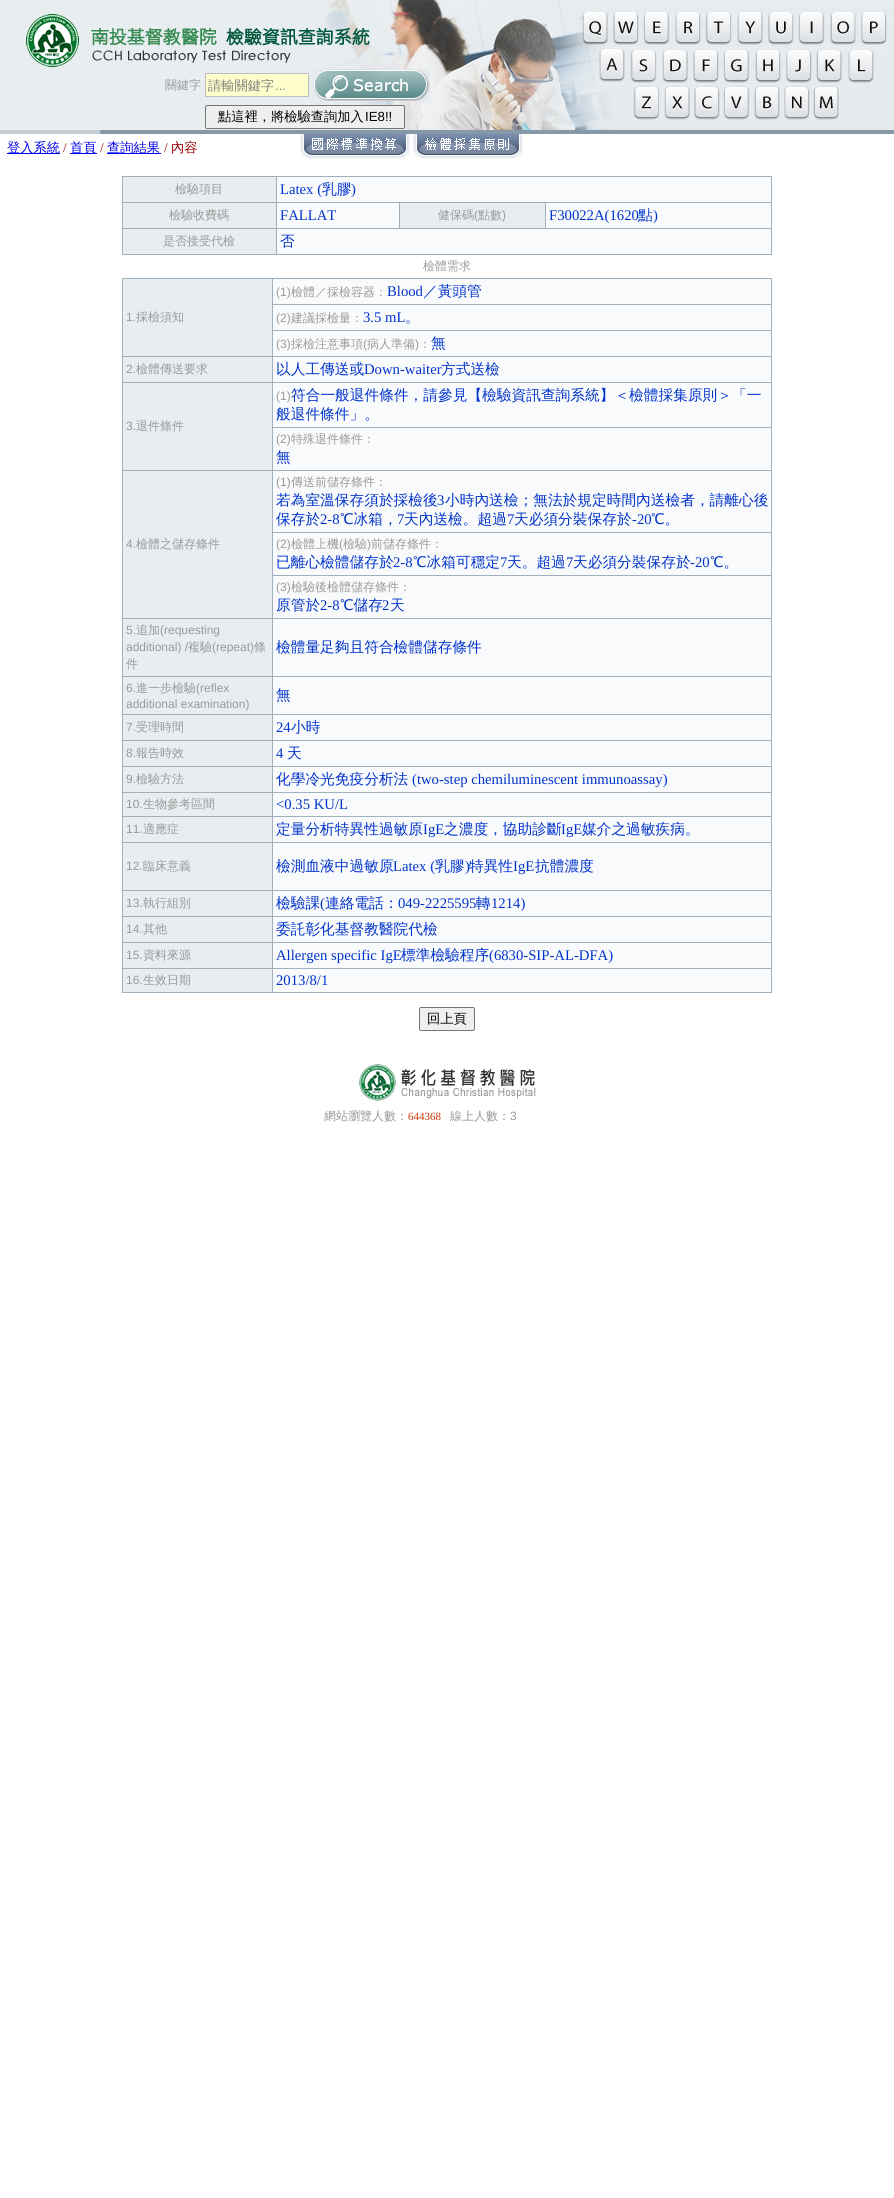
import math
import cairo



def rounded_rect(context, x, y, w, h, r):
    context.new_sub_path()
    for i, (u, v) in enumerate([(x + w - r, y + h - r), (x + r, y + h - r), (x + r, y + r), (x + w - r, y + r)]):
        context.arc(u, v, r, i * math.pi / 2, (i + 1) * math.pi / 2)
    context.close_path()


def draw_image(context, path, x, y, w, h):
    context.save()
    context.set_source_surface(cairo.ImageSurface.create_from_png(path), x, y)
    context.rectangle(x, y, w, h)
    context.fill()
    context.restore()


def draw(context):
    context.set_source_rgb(1, 1, 1)
    context.paint()
    draw_image(context, "images/1.png", 411, 0, 483, 134)
    draw_image(context, "images/2.png", 0, 0, 411, 134)
    draw_image(context, "images/3.png", 411, 0, 201, 130)
    context.set_source_rgb(1, 1, 204 / 255)
    context.rectangle(205.5, 73.5, 103, 23)
    context.fill_preserve()
    context.set_source_rgb(190 / 255, 190 / 255, 190 / 255)
    context.set_line_width(1)
    context.stroke()
    draw_image(context, "images/4.png", 313, 69, 117, 32)
    context.set_source_rgb(239 / 255, 239 / 255, 239 / 255)
    rounded_rect(context, 205.5, 105.5, 199, 23, 1.5)
    context.fill_preserve()
    context.set_source_rgb(118 / 255, 118 / 255, 118 / 255)
    context.stroke()
    draw_image(context, "images/5.png", 582, 11, 26, 34)
    draw_image(context, "images/6.png", 613, 11, 26, 34)
    draw_image(context, "images/7.png", 643, 11, 27, 34)
    draw_image(context, "images/8.png", 675, 11, 26, 34)
    draw_image(context, "images/9.png", 705, 11, 27, 34)
    draw_image(context, "images/10.png", 737, 11, 26, 34)
    draw_image(context, "images/11.png", 768, 11, 26, 34)
    draw_image(context, "images/12.png", 798, 11, 27, 34)
    draw_image(context, "images/13.png", 830, 11, 26, 34)
    draw_image(context, "images/14.png", 861, 11, 26, 34)
    draw_image(context, "images/15.png", 599, 48, 26, 34)
    draw_image(context, "images/16.png", 630, 49, 27, 34)
    draw_image(context, "images/17.png", 662, 49, 26, 34)
    draw_image(context, "images/18.png", 693, 49, 26, 34)
    draw_image(context, "images/19.png", 723, 49, 27, 34)
    draw_image(context, "images/20.png", 755, 49, 26, 34)
    draw_image(context, "images/21.png", 786, 49, 26, 34)
    draw_image(context, "images/22.png", 816, 49, 26, 34)
    draw_image(context, "images/23.png", 848, 49, 26, 34)
    draw_image(context, "images/24.png", 633, 86, 27, 34)
    draw_image(context, "images/25.png", 664, 86, 26, 34)
    draw_image(context, "images/26.png", 694, 86, 26, 34)
    draw_image(context, "images/27.png", 723, 86, 27, 34)
    draw_image(context, "images/28.png", 754, 86, 26, 34)
    draw_image(context, "images/29.png", 784, 86, 26, 34)
    draw_image(context, "images/30.png", 813, 86, 26, 34)
    context.set_source_rgb(0, 0, 238 / 255)
    context.rectangle(7, 153, 53, 1)
    context.fill()
    context.rectangle(70, 153, 27, 1)
    context.fill()
    context.rectangle(107, 153, 54, 1)
    context.fill()
    draw_image(context, "images/31.png", 300, 134, 110, 25)
    draw_image(context, "images/32.png", 413, 134, 110, 25)
    context.set_source_rgb(160 / 255, 176 / 255, 188 / 255)
    context.rectangle(122, 176, 650, 79)
    context.fill()
    context.set_source_rgb(232 / 255, 237 / 255, 240 / 255)
    context.rectangle(123, 177, 153, 25)
    context.fill()
    context.set_source_rgb(249 / 255, 250 / 255, 251 / 255)
    context.rectangle(277, 177, 494, 25)
    context.fill()
    context.set_source_rgb(232 / 255, 237 / 255, 240 / 255)
    context.rectangle(123, 203, 153, 25)
    context.fill()
    context.set_source_rgb(249 / 255, 250 / 255, 251 / 255)
    context.rectangle(277, 203, 122, 25)
    context.fill()
    context.set_source_rgb(232 / 255, 237 / 255, 240 / 255)
    context.rectangle(400, 203, 145, 25)
    context.fill()
    context.set_source_rgb(249 / 255, 250 / 255, 251 / 255)
    context.rectangle(546, 203, 225, 25)
    context.fill()
    context.set_source_rgb(232 / 255, 237 / 255, 240 / 255)
    context.rectangle(123, 229, 153, 25)
    context.fill()
    context.set_source_rgb(249 / 255, 250 / 255, 251 / 255)
    context.rectangle(277, 229, 494, 25)
    context.fill()
    context.set_source_rgb(160 / 255, 176 / 255, 188 / 255)
    context.rectangle(122, 278, 650, 715)
    context.fill()
    context.set_source_rgb(249 / 255, 250 / 255, 251 / 255)
    context.rectangle(273, 279, 498, 25)
    context.fill()
    context.set_source_rgb(232 / 255, 237 / 255, 240 / 255)
    context.rectangle(123, 279, 149, 77)
    context.fill()
    context.set_source_rgb(249 / 255, 250 / 255, 251 / 255)
    context.rectangle(273, 305, 498, 25)
    context.fill()
    context.rectangle(273, 331, 498, 25)
    context.fill()
    context.set_source_rgb(232 / 255, 237 / 255, 240 / 255)
    context.rectangle(123, 357, 149, 25)
    context.fill()
    context.set_source_rgb(249 / 255, 250 / 255, 251 / 255)
    context.rectangle(273, 357, 498, 25)
    context.fill()
    context.rectangle(273, 383, 498, 44)
    context.fill()
    context.set_source_rgb(232 / 255, 237 / 255, 240 / 255)
    context.rectangle(123, 383, 149, 87)
    context.fill()
    context.set_source_rgb(249 / 255, 250 / 255, 251 / 255)
    context.rectangle(273, 428, 498, 42)
    context.fill()
    context.rectangle(273, 471, 498, 61)
    context.fill()
    context.set_source_rgb(232 / 255, 237 / 255, 240 / 255)
    context.rectangle(123, 471, 149, 147)
    context.fill()
    context.set_source_rgb(249 / 255, 250 / 255, 251 / 255)
    context.rectangle(273, 533, 498, 42)
    context.fill()
    context.rectangle(273, 576, 498, 42)
    context.fill()
    context.set_source_rgb(232 / 255, 237 / 255, 240 / 255)
    context.rectangle(123, 619, 149, 57)
    context.fill()
    context.set_source_rgb(249 / 255, 250 / 255, 251 / 255)
    context.rectangle(273, 619, 498, 57)
    context.fill()
    context.set_source_rgb(232 / 255, 237 / 255, 240 / 255)
    context.rectangle(123, 677, 149, 37)
    context.fill()
    context.set_source_rgb(249 / 255, 250 / 255, 251 / 255)
    context.rectangle(273, 677, 498, 37)
    context.fill()
    context.set_source_rgb(232 / 255, 237 / 255, 240 / 255)
    context.rectangle(123, 715, 149, 25)
    context.fill()
    context.set_source_rgb(249 / 255, 250 / 255, 251 / 255)
    context.rectangle(273, 715, 498, 25)
    context.fill()
    context.set_source_rgb(232 / 255, 237 / 255, 240 / 255)
    context.rectangle(123, 741, 149, 25)
    context.fill()
    context.set_source_rgb(249 / 255, 250 / 255, 251 / 255)
    context.rectangle(273, 741, 498, 25)
    context.fill()
    context.set_source_rgb(232 / 255, 237 / 255, 240 / 255)
    context.rectangle(123, 767, 149, 25)
    context.fill()
    context.set_source_rgb(249 / 255, 250 / 255, 251 / 255)
    context.rectangle(273, 767, 498, 25)
    context.fill()
    context.set_source_rgb(232 / 255, 237 / 255, 240 / 255)
    context.rectangle(123, 793, 149, 23)
    context.fill()
    context.set_source_rgb(249 / 255, 250 / 255, 251 / 255)
    context.rectangle(273, 793, 498, 23)
    context.fill()
    context.set_source_rgb(232 / 255, 237 / 255, 240 / 255)
    context.rectangle(123, 817, 149, 25)
    context.fill()
    context.set_source_rgb(249 / 255, 250 / 255, 251 / 255)
    context.rectangle(273, 817, 498, 25)
    context.fill()
    context.set_source_rgb(232 / 255, 237 / 255, 240 / 255)
    context.rectangle(123, 843, 149, 47)
    context.fill()
    context.set_source_rgb(249 / 255, 250 / 255, 251 / 255)
    context.rectangle(273, 843, 498, 47)
    context.fill()
    context.set_source_rgb(232 / 255, 237 / 255, 240 / 255)
    context.rectangle(123, 891, 149, 25)
    context.fill()
    context.set_source_rgb(249 / 255, 250 / 255, 251 / 255)
    context.rectangle(273, 891, 498, 25)
    context.fill()
    context.set_source_rgb(232 / 255, 237 / 255, 240 / 255)
    context.rectangle(123, 917, 149, 25)
    context.fill()
    context.set_source_rgb(249 / 255, 250 / 255, 251 / 255)
    context.rectangle(273, 917, 498, 25)
    context.fill()
    context.set_source_rgb(232 / 255, 237 / 255, 240 / 255)
    context.rectangle(123, 943, 149, 25)
    context.fill()
    context.set_source_rgb(249 / 255, 250 / 255, 251 / 255)
    context.rectangle(273, 943, 498, 25)
    context.fill()
    context.set_source_rgb(232 / 255, 237 / 255, 240 / 255)
    context.rectangle(123, 969, 149, 23)
    context.fill()
    context.set_source_rgb(249 / 255, 250 / 255, 251 / 255)
    context.rectangle(273, 969, 498, 23)
    context.fill()
    context.set_source_rgb(239 / 255, 239 / 255, 239 / 255)
    rounded_rect(context, 419.5, 1007.5, 55, 23, 1.5)
    context.fill_preserve()
    context.set_source_rgb(118 / 255, 118 / 255, 118 / 255)
    context.stroke()
    draw_image(context, "images/33.png", 359, 1064, 177, 37)
    context.select_font_face("WenQuanYi Zen Hei Medium")
    context.set_font_size(12)
    context.set_source_rgb(153 / 255, 153 / 255, 153 / 255)
    context.move_to(165, 89)
    context.show_text("關鍵字")
    context.set_font_size(13.25)
    context.set_source_rgb(128 / 255, 128 / 255, 128 / 255)
    context.move_to(208, 90)
    context.show_text("請輸關鍵字")
    context.select_font_face("Liberation Sans")
    context.move_to(275, 90)
    context.show_text("...")
    context.select_font_face("WenQuanYi Zen Hei Medium")
    context.set_source_rgb(0, 0, 0)
    context.move_to(218, 121)
    context.show_text("點這裡，將檢驗查詢加入")
    context.select_font_face("Liberation Sans")
    context.move_to(365, 121)
    context.show_text("IE8!!")
    context.select_font_face("WenQuanYi Zen Hei Medium")
    context.set_source_rgb(0, 0, 238 / 255)
    context.move_to(7, 152)
    context.show_text("登入系統")
    context.select_font_face("Liberation Serif")
    context.set_source_rgb(153 / 255, 0, 0)
    context.move_to(63, 152)
    context.show_text("/")
    context.select_font_face("WenQuanYi Zen Hei Medium")
    context.set_source_rgb(0, 0, 238 / 255)
    context.move_to(70, 152)
    context.show_text("首頁")
    context.select_font_face("Liberation Serif")
    context.set_source_rgb(153 / 255, 0, 0)
    context.move_to(100, 152)
    context.show_text("/")
    context.select_font_face("WenQuanYi Zen Hei Medium")
    context.set_source_rgb(0, 0, 238 / 255)
    context.move_to(107, 152)
    context.show_text("查詢結果")
    context.select_font_face("Liberation Serif")
    context.set_source_rgb(153 / 255, 0, 0)
    context.move_to(164, 152)
    context.show_text("/")
    context.select_font_face("WenQuanYi Zen Hei Medium")
    context.move_to(171, 152)
    context.show_text("內容")
    context.set_font_size(12)
    context.set_source_rgb(153 / 255, 153 / 255, 153 / 255)
    context.move_to(175, 193)
    context.show_text("檢驗項目")
    context.select_font_face("Liberation Serif")
    context.set_font_size(14.7)
    context.set_source_rgb(0, 51 / 255, 204 / 255)
    context.move_to(280, 194)
    context.show_text("Latex (")
    context.select_font_face("WenQuanYi Zen Hei Medium")
    context.move_to(322, 194)
    context.show_text("乳膠")
    context.select_font_face("Liberation Serif")
    context.move_to(351, 194)
    context.show_text(")")
    context.select_font_face("WenQuanYi Zen Hei Medium")
    context.set_font_size(12)
    context.set_source_rgb(153 / 255, 153 / 255, 153 / 255)
    context.move_to(169, 219)
    context.show_text("檢驗收費碼")
    context.select_font_face("Liberation Serif")
    context.set_font_size(14.7)
    context.set_source_rgb(0, 51 / 255, 204 / 255)
    context.move_to(280, 220)
    context.show_text("FALLAT")
    context.select_font_face("WenQuanYi Zen Hei Medium")
    context.set_font_size(12)
    context.set_source_rgb(153 / 255, 153 / 255, 153 / 255)
    context.move_to(438, 219)
    context.show_text("健保碼")
    context.select_font_face("Liberation Sans")
    context.move_to(474, 219)
    context.show_text("(")
    context.select_font_face("WenQuanYi Zen Hei Medium")
    context.move_to(478, 219)
    context.show_text("點數")
    context.select_font_face("Liberation Sans")
    context.move_to(502, 219)
    context.show_text(")")
    context.select_font_face("Liberation Serif")
    context.set_font_size(14.7)
    context.set_source_rgb(0, 51 / 255, 204 / 255)
    context.move_to(549, 220)
    context.show_text("F30022A(1620")
    context.select_font_face("WenQuanYi Zen Hei Medium")
    context.move_to(638, 220)
    context.show_text("點")
    context.select_font_face("Liberation Serif")
    context.move_to(653, 220)
    context.show_text(")")
    context.select_font_face("WenQuanYi Zen Hei Medium")
    context.set_font_size(12)
    context.set_source_rgb(153 / 255, 153 / 255, 153 / 255)
    context.move_to(163, 245)
    context.show_text("是否接受代檢")
    context.set_font_size(14.7)
    context.set_source_rgb(0, 51 / 255, 204 / 255)
    context.move_to(280, 246)
    context.show_text("否")
    context.set_font_size(12)
    context.set_source_rgb(153 / 255, 153 / 255, 153 / 255)
    context.move_to(423, 270)
    context.show_text("檢體需求")
    context.select_font_face("Liberation Sans")
    context.move_to(276, 296)
    context.show_text("(1)")
    context.select_font_face("WenQuanYi Zen Hei Medium")
    context.move_to(291, 296)
    context.show_text("檢體／採檢容器：")
    context.select_font_face("Liberation Serif")
    context.set_font_size(14.7)
    context.set_source_rgb(0, 51 / 255, 204 / 255)
    context.move_to(387, 296)
    context.show_text("Blood")
    context.select_font_face("WenQuanYi Zen Hei Medium")
    context.move_to(423, 296)
    context.show_text("／黃頭管")
    context.select_font_face("Liberation Sans")
    context.set_font_size(12)
    context.set_source_rgb(153 / 255, 153 / 255, 153 / 255)
    context.move_to(126, 321)
    context.show_text("1.")
    context.select_font_face("WenQuanYi Zen Hei Medium")
    context.move_to(136, 321)
    context.show_text("採檢須知")
    context.select_font_face("Liberation Sans")
    context.move_to(276, 322)
    context.show_text("(2)")
    context.select_font_face("WenQuanYi Zen Hei Medium")
    context.move_to(291, 322)
    context.show_text("建議採檢量：")
    context.select_font_face("Liberation Serif")
    context.set_font_size(14.7)
    context.set_source_rgb(0, 51 / 255, 204 / 255)
    context.move_to(363, 322)
    context.show_text("3.5 mL")
    context.select_font_face("WenQuanYi Zen Hei Medium")
    context.move_to(405, 322)
    context.show_text("。")
    context.select_font_face("Liberation Sans")
    context.set_font_size(12)
    context.set_source_rgb(153 / 255, 153 / 255, 153 / 255)
    context.move_to(276, 348)
    context.show_text("(3)")
    context.select_font_face("WenQuanYi Zen Hei Medium")
    context.move_to(291, 348)
    context.show_text("採檢注意事項")
    context.select_font_face("Liberation Sans")
    context.move_to(363, 348)
    context.show_text("(")
    context.select_font_face("WenQuanYi Zen Hei Medium")
    context.move_to(367, 348)
    context.show_text("病人準備")
    context.select_font_face("Liberation Sans")
    context.move_to(415, 348)
    context.show_text(")")
    context.select_font_face("WenQuanYi Zen Hei Medium")
    context.move_to(419, 348)
    context.show_text("：")
    context.set_font_size(14.7)
    context.set_source_rgb(0, 51 / 255, 204 / 255)
    context.move_to(431, 348)
    context.show_text("無")
    context.select_font_face("Liberation Sans")
    context.set_font_size(12)
    context.set_source_rgb(153 / 255, 153 / 255, 153 / 255)
    context.move_to(126, 373)
    context.show_text("2.")
    context.select_font_face("WenQuanYi Zen Hei Medium")
    context.move_to(136, 373)
    context.show_text("檢體傳送要求")
    context.set_font_size(14.7)
    context.set_source_rgb(0, 51 / 255, 204 / 255)
    context.move_to(276, 374)
    context.show_text("以人工傳送或")
    context.select_font_face("Liberation Serif")
    context.move_to(364, 374)
    context.show_text("Down-waiter")
    context.select_font_face("WenQuanYi Zen Hei Medium")
    context.move_to(441, 374)
    context.show_text("方式送檢")
    context.select_font_face("Liberation Sans")
    context.set_font_size(12)
    context.set_source_rgb(153 / 255, 153 / 255, 153 / 255)
    context.move_to(276, 400)
    context.show_text("(1)")
    context.select_font_face("WenQuanYi Zen Hei Medium")
    context.set_font_size(14.7)
    context.set_source_rgb(0, 51 / 255, 204 / 255)
    context.move_to(291, 400)
    context.show_text("符合一般退件條件，請參見【檢驗資訊查詢系統】＜檢體採集原則＞「一")
    context.move_to(276, 419)
    context.show_text("般退件條件」。")
    context.select_font_face("Liberation Sans")
    context.set_font_size(12)
    context.set_source_rgb(153 / 255, 153 / 255, 153 / 255)
    context.move_to(126, 430)
    context.show_text("3.")
    context.select_font_face("WenQuanYi Zen Hei Medium")
    context.move_to(136, 430)
    context.show_text("退件條件")
    context.select_font_face("Liberation Sans")
    context.move_to(276, 443)
    context.show_text("(2)")
    context.select_font_face("WenQuanYi Zen Hei Medium")
    context.move_to(291, 443)
    context.show_text("特殊退件條件：")
    context.set_font_size(14.7)
    context.set_source_rgb(0, 51 / 255, 204 / 255)
    context.move_to(276, 462)
    context.show_text("無")
    context.select_font_face("Liberation Sans")
    context.set_font_size(12)
    context.set_source_rgb(153 / 255, 153 / 255, 153 / 255)
    context.move_to(276, 486)
    context.show_text("(1)")
    context.select_font_face("WenQuanYi Zen Hei Medium")
    context.move_to(291, 486)
    context.show_text("傳送前儲存條件：")
    context.set_font_size(14.7)
    context.set_source_rgb(0, 51 / 255, 204 / 255)
    context.move_to(276, 505)
    context.show_text("若為室溫保存須於採檢後")
    context.select_font_face("Liberation Serif")
    context.move_to(437, 505)
    context.show_text("3")
    context.select_font_face("WenQuanYi Zen Hei Medium")
    context.move_to(445, 505)
    context.show_text("小時內送檢；無法於規定時間內送檢者，請離心後")
    context.move_to(276, 524)
    context.show_text("保存於")
    context.select_font_face("Liberation Serif")
    context.move_to(320, 524)
    context.show_text("2-8")
    context.select_font_face("WenQuanYi Zen Hei Medium")
    context.move_to(340, 524)
    context.show_text("℃冰箱，")
    context.select_font_face("Liberation Serif")
    context.move_to(397, 524)
    context.show_text("7")
    context.select_font_face("WenQuanYi Zen Hei Medium")
    context.move_to(404, 524)
    context.show_text("天內送檢。超過")
    context.select_font_face("Liberation Serif")
    context.move_to(507, 524)
    context.show_text("7")
    context.select_font_face("WenQuanYi Zen Hei Medium")
    context.move_to(514, 524)
    context.show_text("天必須分裝保存於")
    context.select_font_face("Liberation Serif")
    context.move_to(632, 524)
    context.show_text("-20")
    context.select_font_face("WenQuanYi Zen Hei Medium")
    context.move_to(651, 524)
    context.show_text("℃。")
    context.select_font_face("Liberation Sans")
    context.set_font_size(12)
    context.set_source_rgb(153 / 255, 153 / 255, 153 / 255)
    context.move_to(126, 548)
    context.show_text("4.")
    context.select_font_face("WenQuanYi Zen Hei Medium")
    context.move_to(136, 548)
    context.show_text("檢體之儲存條件")
    context.select_font_face("Liberation Sans")
    context.move_to(276, 548)
    context.show_text("(2)")
    context.select_font_face("WenQuanYi Zen Hei Medium")
    context.move_to(291, 548)
    context.show_text("檢體上機")
    context.select_font_face("Liberation Sans")
    context.move_to(339, 548)
    context.show_text("(")
    context.select_font_face("WenQuanYi Zen Hei Medium")
    context.move_to(343, 548)
    context.show_text("檢驗")
    context.select_font_face("Liberation Sans")
    context.move_to(367, 548)
    context.show_text(")")
    context.select_font_face("WenQuanYi Zen Hei Medium")
    context.move_to(371, 548)
    context.show_text("前儲存條件：")
    context.set_font_size(14.7)
    context.set_source_rgb(0, 51 / 255, 204 / 255)
    context.move_to(276, 567)
    context.show_text("已離心檢體儲存於")
    context.select_font_face("Liberation Serif")
    context.move_to(393, 567)
    context.show_text("2-8")
    context.select_font_face("WenQuanYi Zen Hei Medium")
    context.move_to(413, 567)
    context.show_text("℃冰箱可穩定")
    context.select_font_face("Liberation Serif")
    context.move_to(500, 567)
    context.show_text("7")
    context.select_font_face("WenQuanYi Zen Hei Medium")
    context.move_to(507, 567)
    context.show_text("天。超過")
    context.select_font_face("Liberation Serif")
    context.move_to(566, 567)
    context.show_text("7")
    context.select_font_face("WenQuanYi Zen Hei Medium")
    context.move_to(573, 567)
    context.show_text("天必須分裝保存於")
    context.select_font_face("Liberation Serif")
    context.move_to(690, 567)
    context.show_text("-20")
    context.select_font_face("WenQuanYi Zen Hei Medium")
    context.move_to(710, 567)
    context.show_text("℃。")
    context.select_font_face("Liberation Sans")
    context.set_font_size(12)
    context.set_source_rgb(153 / 255, 153 / 255, 153 / 255)
    context.move_to(276, 591)
    context.show_text("(3)")
    context.select_font_face("WenQuanYi Zen Hei Medium")
    context.move_to(291, 591)
    context.show_text("檢驗後檢體儲存條件：")
    context.set_font_size(14.7)
    context.set_source_rgb(0, 51 / 255, 204 / 255)
    context.move_to(276, 610)
    context.show_text("原管於")
    context.select_font_face("Liberation Serif")
    context.move_to(320, 610)
    context.show_text("2-8")
    context.select_font_face("WenQuanYi Zen Hei Medium")
    context.move_to(340, 610)
    context.show_text("℃儲存")
    context.select_font_face("Liberation Serif")
    context.move_to(382, 610)
    context.show_text("2")
    context.select_font_face("WenQuanYi Zen Hei Medium")
    context.move_to(390, 610)
    context.show_text("天")
    context.select_font_face("Liberation Sans")
    context.set_font_size(12)
    context.set_source_rgb(153 / 255, 153 / 255, 153 / 255)
    context.move_to(126, 634)
    context.show_text("5.")
    context.select_font_face("WenQuanYi Zen Hei Medium")
    context.move_to(136, 634)
    context.show_text("追加")
    context.select_font_face("Liberation Sans")
    context.move_to(160, 634)
    context.show_text("(requesting")
    context.move_to(126, 651)
    context.show_text("additional) /")
    context.select_font_face("WenQuanYi Zen Hei Medium")
    context.move_to(188, 651)
    context.show_text("複驗")
    context.select_font_face("Liberation Sans")
    context.move_to(212, 651)
    context.show_text("(repeat)")
    context.select_font_face("WenQuanYi Zen Hei Medium")
    context.move_to(254, 651)
    context.show_text("條")
    context.move_to(126, 668)
    context.show_text("件")
    context.set_font_size(14.7)
    context.set_source_rgb(0, 51 / 255, 204 / 255)
    context.move_to(276, 652)
    context.show_text("檢體量足夠且符合檢體儲存條件")
    context.select_font_face("Liberation Sans")
    context.set_font_size(12)
    context.set_source_rgb(153 / 255, 153 / 255, 153 / 255)
    context.move_to(126, 692)
    context.show_text("6.")
    context.select_font_face("WenQuanYi Zen Hei Medium")
    context.move_to(136, 692)
    context.show_text("進一步檢驗")
    context.select_font_face("Liberation Sans")
    context.move_to(196, 692)
    context.show_text("(reflex")
    context.move_to(126, 708)
    context.show_text("additional examination)")
    context.select_font_face("WenQuanYi Zen Hei Medium")
    context.set_font_size(14.7)
    context.set_source_rgb(0, 51 / 255, 204 / 255)
    context.move_to(276, 700)
    context.show_text("無")
    context.select_font_face("Liberation Sans")
    context.set_font_size(12)
    context.set_source_rgb(153 / 255, 153 / 255, 153 / 255)
    context.move_to(126, 731)
    context.show_text("7.")
    context.select_font_face("WenQuanYi Zen Hei Medium")
    context.move_to(136, 731)
    context.show_text("受理時間")
    context.select_font_face("Liberation Serif")
    context.set_font_size(14.7)
    context.set_source_rgb(0, 51 / 255, 204 / 255)
    context.move_to(276, 732)
    context.show_text("24")
    context.select_font_face("WenQuanYi Zen Hei Medium")
    context.move_to(291, 732)
    context.show_text("小時")
    context.select_font_face("Liberation Sans")
    context.set_font_size(12)
    context.set_source_rgb(153 / 255, 153 / 255, 153 / 255)
    context.move_to(126, 757)
    context.show_text("8.")
    context.select_font_face("WenQuanYi Zen Hei Medium")
    context.move_to(136, 757)
    context.show_text("報告時效")
    context.select_font_face("Liberation Serif")
    context.set_font_size(14.7)
    context.set_source_rgb(0, 51 / 255, 204 / 255)
    context.move_to(276, 758)
    context.show_text("4")
    context.select_font_face("WenQuanYi Zen Hei Medium")
    context.move_to(287, 758)
    context.show_text("天")
    context.select_font_face("Liberation Sans")
    context.set_font_size(12)
    context.set_source_rgb(153 / 255, 153 / 255, 153 / 255)
    context.move_to(126, 783)
    context.show_text("9.")
    context.select_font_face("WenQuanYi Zen Hei Medium")
    context.move_to(136, 783)
    context.show_text("檢驗方法")
    context.set_font_size(14.7)
    context.set_source_rgb(0, 51 / 255, 204 / 255)
    context.move_to(276, 784)
    context.show_text("化學冷光免疫分析法")
    context.select_font_face("Liberation Serif")
    context.move_to(412, 784)
    context.show_text("(two-step chemiluminescent immunoassay)")
    context.select_font_face("Liberation Sans")
    context.set_font_size(12)
    context.set_source_rgb(153 / 255, 153 / 255, 153 / 255)
    context.move_to(126, 808)
    context.show_text("10.")
    context.select_font_face("WenQuanYi Zen Hei Medium")
    context.move_to(143, 808)
    context.show_text("生物參考區間")
    context.select_font_face("Liberation Serif")
    context.set_font_size(14.7)
    context.set_source_rgb(0, 51 / 255, 204 / 255)
    context.move_to(276, 809)
    context.show_text("<0.35 KU/L")
    context.select_font_face("Liberation Sans")
    context.set_font_size(12)
    context.set_source_rgb(153 / 255, 153 / 255, 153 / 255)
    context.move_to(126, 833)
    context.show_text("11.")
    context.select_font_face("WenQuanYi Zen Hei Medium")
    context.move_to(143, 833)
    context.show_text("適應症")
    context.set_font_size(14.7)
    context.set_source_rgb(0, 51 / 255, 204 / 255)
    context.move_to(276, 834)
    context.show_text("定量分析特異性過敏原")
    context.select_font_face("Liberation Serif")
    context.move_to(423, 834)
    context.show_text("IgE")
    context.select_font_face("WenQuanYi Zen Hei Medium")
    context.move_to(444, 834)
    context.show_text("之濃度，協助診斷")
    context.select_font_face("Liberation Serif")
    context.move_to(561, 834)
    context.show_text("IgE")
    context.select_font_face("WenQuanYi Zen Hei Medium")
    context.move_to(582, 834)
    context.show_text("媒介之過敏疾病。")
    context.select_font_face("Liberation Sans")
    context.set_font_size(12)
    context.set_source_rgb(153 / 255, 153 / 255, 153 / 255)
    context.move_to(126, 870)
    context.show_text("12.")
    context.select_font_face("WenQuanYi Zen Hei Medium")
    context.move_to(143, 870)
    context.show_text("臨床意義")
    context.set_font_size(14.7)
    context.set_source_rgb(0, 51 / 255, 204 / 255)
    context.move_to(276, 871)
    context.show_text("檢測血液中過敏原")
    context.select_font_face("Liberation Serif")
    context.move_to(393, 871)
    context.show_text("Latex (")
    context.select_font_face("WenQuanYi Zen Hei Medium")
    context.move_to(435, 871)
    context.show_text("乳膠")
    context.select_font_face("Liberation Serif")
    context.move_to(465, 871)
    context.show_text(")")
    context.select_font_face("WenQuanYi Zen Hei Medium")
    context.move_to(469, 871)
    context.show_text("特異性")
    context.select_font_face("Liberation Serif")
    context.move_to(513, 871)
    context.show_text("IgE")
    context.select_font_face("WenQuanYi Zen Hei Medium")
    context.move_to(535, 871)
    context.show_text("抗體濃度")
    context.select_font_face("Liberation Sans")
    context.set_font_size(12)
    context.set_source_rgb(153 / 255, 153 / 255, 153 / 255)
    context.move_to(126, 907)
    context.show_text("13.")
    context.select_font_face("WenQuanYi Zen Hei Medium")
    context.move_to(143, 907)
    context.show_text("執行組別")
    context.set_font_size(14.7)
    context.set_source_rgb(0, 51 / 255, 204 / 255)
    context.move_to(276, 908)
    context.show_text("檢驗課")
    context.select_font_face("Liberation Serif")
    context.move_to(320, 908)
    context.show_text("(")
    context.select_font_face("WenQuanYi Zen Hei Medium")
    context.move_to(325, 908)
    context.show_text("連絡電話：")
    context.select_font_face("Liberation Serif")
    context.move_to(398, 908)
    context.show_text("049-2225595")
    context.select_font_face("WenQuanYi Zen Hei Medium")
    context.move_to(476, 908)
    context.show_text("轉")
    context.select_font_face("Liberation Serif")
    context.move_to(491, 908)
    context.show_text("1214)")
    context.select_font_face("Liberation Sans")
    context.set_font_size(12)
    context.set_source_rgb(153 / 255, 153 / 255, 153 / 255)
    context.move_to(126, 933)
    context.show_text("14.")
    context.select_font_face("WenQuanYi Zen Hei Medium")
    context.move_to(143, 933)
    context.show_text("其他")
    context.set_font_size(14.7)
    context.set_source_rgb(0, 51 / 255, 204 / 255)
    context.move_to(276, 934)
    context.show_text("委託彰化基督教醫院代檢")
    context.select_font_face("Liberation Sans")
    context.set_font_size(12)
    context.set_source_rgb(153 / 255, 153 / 255, 153 / 255)
    context.move_to(126, 959)
    context.show_text("15.")
    context.select_font_face("WenQuanYi Zen Hei Medium")
    context.move_to(143, 959)
    context.show_text("資料來源")
    context.select_font_face("Liberation Serif")
    context.set_font_size(14.7)
    context.set_source_rgb(0, 51 / 255, 204 / 255)
    context.move_to(276, 960)
    context.show_text("Allergen specific IgE")
    context.select_font_face("WenQuanYi Zen Hei Medium")
    context.move_to(401, 960)
    context.show_text("標準檢驗程序")
    context.select_font_face("Liberation Serif")
    context.move_to(489, 960)
    context.show_text("(6830-SIP-AL-DFA)")
    context.select_font_face("Liberation Sans")
    context.set_font_size(12)
    context.set_source_rgb(153 / 255, 153 / 255, 153 / 255)
    context.move_to(126, 984)
    context.show_text("16.")
    context.select_font_face("WenQuanYi Zen Hei Medium")
    context.move_to(143, 984)
    context.show_text("生效日期")
    context.select_font_face("Liberation Serif")
    context.set_font_size(14.7)
    context.set_source_rgb(0, 51 / 255, 204 / 255)
    context.move_to(276, 985)
    context.show_text("2013/8/1")
    context.select_font_face("WenQuanYi Zen Hei Medium")
    context.set_font_size(13.25)
    context.set_source_rgb(0, 0, 0)
    context.move_to(427, 1023)
    context.show_text("回上頁")
    context.set_font_size(12)
    context.set_source_rgb(153 / 255, 153 / 255, 153 / 255)
    context.move_to(324, 1120)
    context.show_text("網站瀏覽人數：")
    context.select_font_face("Liberation Serif")
    context.set_font_size(11)
    context.set_source_rgb(204 / 255, 51 / 255, 0)
    context.move_to(408, 1120)
    context.show_text("644368")
    context.select_font_face("WenQuanYi Zen Hei Medium")
    context.set_font_size(12)
    context.set_source_rgb(153 / 255, 153 / 255, 153 / 255)
    context.move_to(450, 1120)
    context.show_text("線上人數：")
    context.select_font_face("Liberation Sans")
    context.move_to(510, 1120)
    context.show_text("3")


surface = cairo.ImageSurface(cairo.Format.RGB24, 894, 2198)
context = cairo.Context(surface)
options = cairo.FontOptions()
options.set_hint_metrics(cairo.HintMetrics.OFF)
options.set_hint_style(cairo.HintStyle.NONE)
context.set_font_options(options)
context.set_miter_limit(4)
draw(context)
surface.write_to_png("out.png")
